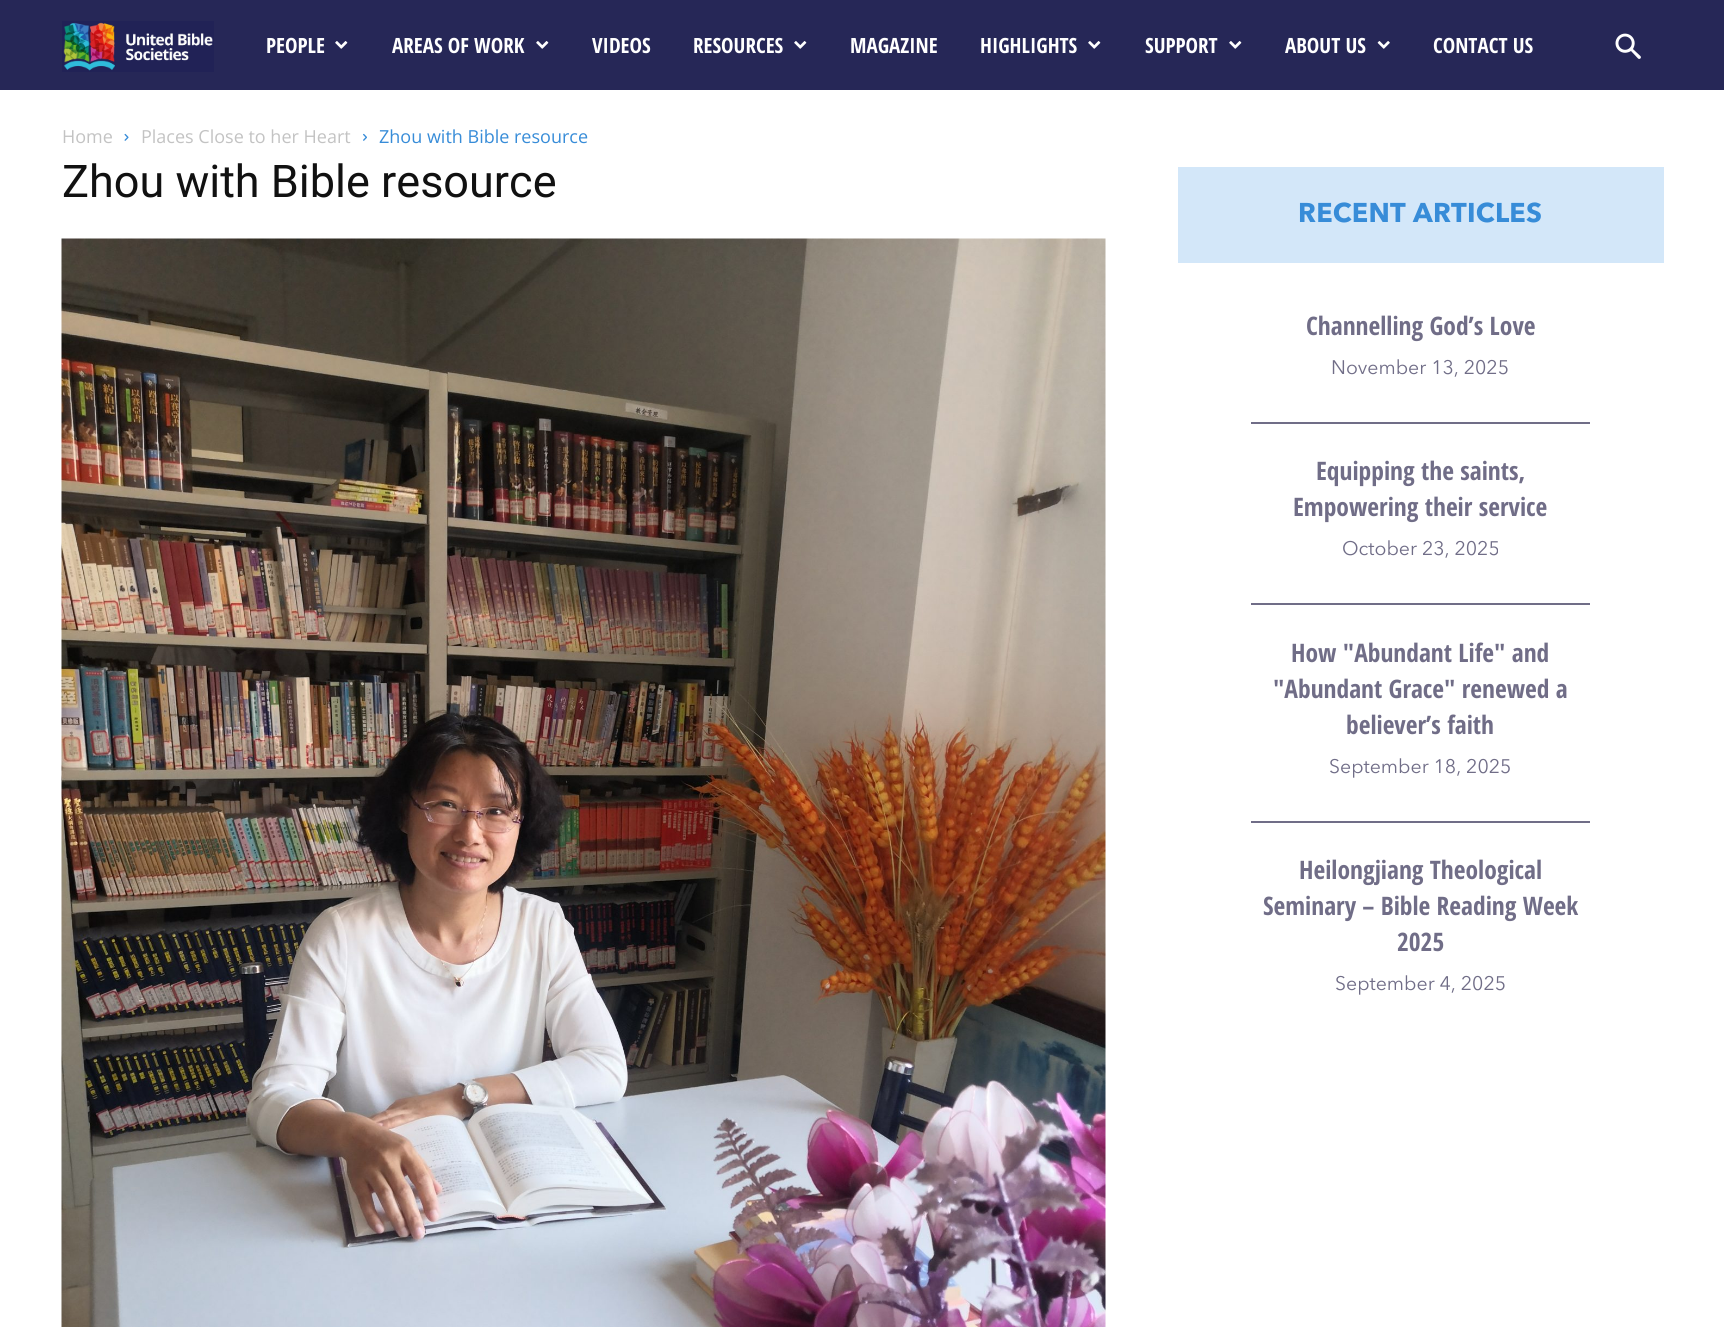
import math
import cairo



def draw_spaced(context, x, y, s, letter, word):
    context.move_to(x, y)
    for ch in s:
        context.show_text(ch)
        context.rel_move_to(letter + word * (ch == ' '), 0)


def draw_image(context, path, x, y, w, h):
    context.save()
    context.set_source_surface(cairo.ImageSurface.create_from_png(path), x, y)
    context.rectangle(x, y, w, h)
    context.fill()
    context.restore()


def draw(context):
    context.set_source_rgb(1, 1, 1)
    context.paint()
    context.set_source_rgb(38 / 255, 39 / 255, 87 / 255)
    context.rectangle(0, 0, 1724, 90)
    context.fill()
    draw_image(context, "images/1.png", 62, 21, 152, 51)
    draw_image(context, "images/2.png", 335, 41, 13, 8)
    draw_image(context, "images/2.png", 536, 41, 13, 8)
    draw_image(context, "images/2.png", 794, 41, 13, 8)
    draw_image(context, "images/2.png", 1088, 41, 13, 8)
    draw_image(context, "images/2.png", 1229, 41, 13, 8)
    draw_image(context, "images/3.png", 1377, 41, 13, 8)
    draw_image(context, "images/4.png", 1615, 33, 26, 26)
    draw_image(context, "images/5.png", 124, 133, 5, 8)
    draw_image(context, "images/6.png", 363, 133, 4, 8)
    draw_image(context, "images/7.png", 61, 238, 1045, 1089)
    context.set_source_rgb(211 / 255, 231 / 255, 249 / 255)
    context.rectangle(1178, 167, 486, 96)
    context.fill()
    context.set_source_rgb(112 / 255, 109 / 255, 135 / 255)
    context.rectangle(1251, 422, 339, 2)
    context.fill()
    context.rectangle(1251, 603, 339, 2)
    context.fill()
    context.rectangle(1251, 821, 339, 2)
    context.fill()
    context.select_font_face("Open Sans Condensed", cairo.FontSlant.NORMAL, cairo.FontWeight.BOLD)
    context.set_font_size(21)
    context.set_source_rgb(1, 1, 1)
    context.move_to(266, 53)
    context.show_text("PEOPLE")
    context.move_to(392, 53)
    context.show_text("AREAS OF WORK")
    context.move_to(592, 53)
    context.show_text("VIDEOS")
    context.move_to(693, 53)
    context.show_text("RESOURCES")
    context.move_to(850, 53)
    context.show_text("MAGAZINE")
    context.move_to(980, 53)
    context.show_text("HIGHLIGHTS")
    context.move_to(1145, 53)
    context.show_text("SUPPORT")
    context.move_to(1285, 53)
    context.show_text("ABOUT US")
    context.move_to(1433, 53)
    context.show_text("CONTACT US")
    context.select_font_face("Open Sans")
    context.set_font_size(18)
    context.set_source_rgb(195 / 255, 195 / 255, 195 / 255)
    context.move_to(62, 143)
    context.show_text("Home")
    context.move_to(141, 143)
    context.show_text("Places Close to her Heart")
    context.set_source_rgb(55 / 255, 140 / 255, 216 / 255)
    context.move_to(379, 143)
    context.show_text("Zhou with Bible resource")
    context.select_font_face("Roboto")
    context.set_font_size(45)
    context.set_source_rgb(17 / 255, 17 / 255, 17 / 255)
    context.move_to(62, 197)
    context.show_text("Zhou with Bible resource")
    context.select_font_face("Avenir Next", cairo.FontSlant.NORMAL, cairo.FontWeight.BOLD)
    context.set_font_size(27)
    context.set_source_rgb(55 / 255, 140 / 255, 216 / 255)
    draw_spaced(context, 1298, 222, "RECENT ARTICLES", 0.25, 0)
    context.select_font_face("Open Sans Condensed", cairo.FontSlant.NORMAL, cairo.FontWeight.BOLD)
    context.set_font_size(25.5)
    context.set_source_rgb(112 / 255, 109 / 255, 135 / 255)
    context.move_to(1306, 335)
    context.show_text("Channelling God’s Love")
    context.select_font_face("Avenir Next")
    context.set_font_size(19.5)
    context.move_to(1331, 374)
    context.show_text("November 13, 2025")
    context.select_font_face("Open Sans Condensed", cairo.FontSlant.NORMAL, cairo.FontWeight.BOLD)
    context.set_font_size(25.5)
    context.move_to(1316, 480)
    context.show_text("Equipping the saints,")
    context.move_to(1293, 516)
    context.show_text("Empowering their service")
    context.select_font_face("Avenir Next")
    context.set_font_size(19.5)
    context.move_to(1342, 555)
    context.show_text("October 23, 2025")
    context.select_font_face("Open Sans Condensed", cairo.FontSlant.NORMAL, cairo.FontWeight.BOLD)
    context.set_font_size(25.5)
    context.move_to(1291, 662)
    context.show_text("How \"Abundant Life\" and")
    context.move_to(1273, 698)
    context.show_text("\"Abundant Grace\" renewed a")
    context.move_to(1346, 734)
    context.show_text("believer’s faith")
    context.select_font_face("Avenir Next")
    context.set_font_size(19.5)
    context.move_to(1329, 773)
    context.show_text("September 18, 2025")
    context.select_font_face("Open Sans Condensed", cairo.FontSlant.NORMAL, cairo.FontWeight.BOLD)
    context.set_font_size(25.5)
    context.move_to(1299, 879)
    context.show_text("Heilongjiang Theological")
    context.move_to(1263, 915)
    context.show_text("Seminary – Bible Reading Week")
    context.move_to(1397, 951)
    context.show_text("2025")
    context.select_font_face("Avenir Next")
    context.set_font_size(19.5)
    context.move_to(1335, 990)
    context.show_text("September 4, 2025")


surface = cairo.ImageSurface(cairo.Format.RGB24, 1724, 1327)
context = cairo.Context(surface)
options = cairo.FontOptions()
options.set_hint_metrics(cairo.HintMetrics.OFF)
options.set_hint_style(cairo.HintStyle.NONE)
context.set_font_options(options)
context.set_miter_limit(4)
draw(context)
surface.write_to_png("out.png")
